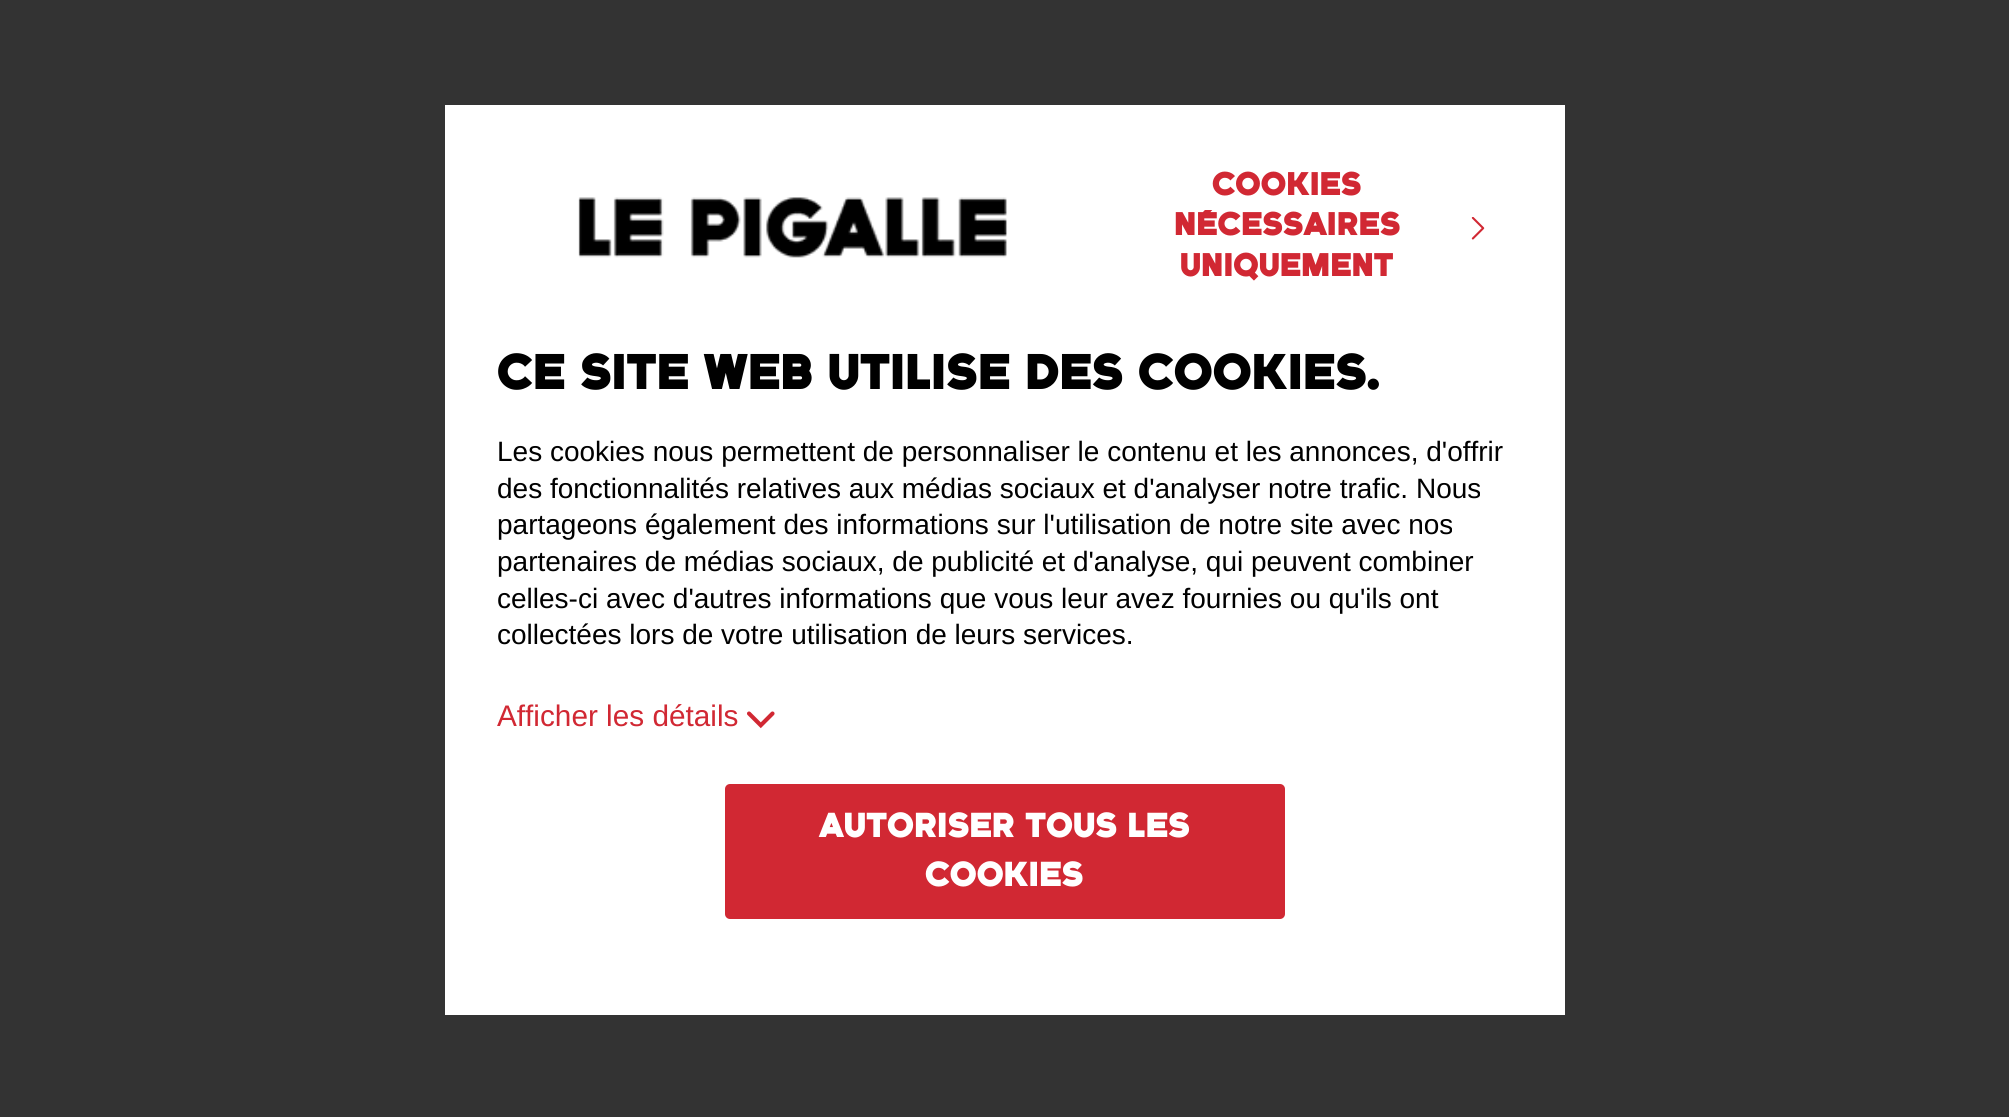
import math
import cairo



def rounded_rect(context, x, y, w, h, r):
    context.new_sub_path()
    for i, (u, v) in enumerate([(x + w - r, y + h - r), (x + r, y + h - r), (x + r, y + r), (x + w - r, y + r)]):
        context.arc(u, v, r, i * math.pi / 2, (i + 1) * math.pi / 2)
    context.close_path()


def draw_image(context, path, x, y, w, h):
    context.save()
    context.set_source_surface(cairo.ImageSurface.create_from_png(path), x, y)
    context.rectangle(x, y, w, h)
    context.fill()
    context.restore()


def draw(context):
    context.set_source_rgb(51 / 255, 51 / 255, 51 / 255)
    context.paint()
    context.set_source_rgb(1, 1, 1)
    context.rectangle(445, 105, 1120, 910)
    context.fill()
    draw_image(context, "images/1.png", 578, 197, 429, 61)
    draw_image(context, "images/2.png", 1471, 217, 14, 23)
    draw_image(context, "images/3.png", 747, 711, 28, 18)
    context.set_source_rgb(209 / 255, 40 / 255, 51 / 255)
    rounded_rect(context, 725, 784, 560, 135, 5)
    context.fill()
    context.select_font_face("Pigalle")
    context.set_font_size(29.75)
    context.move_to(1212, 195)
    context.show_text("Cookies")
    context.move_to(1174, 235)
    context.show_text("nécessaires")
    context.move_to(1180, 276)
    context.show_text("uniquement")
    context.set_font_size(45.5)
    context.set_source_rgb(0, 0, 0)
    context.move_to(497, 389)
    context.show_text("Ce site web utilise des cookies.")
    context.select_font_face("Liberation Sans")
    context.set_font_size(28)
    context.move_to(497, 461)
    context.show_text("Les cookies nous permettent de personnaliser le contenu et les annonces, d'offrir")
    context.move_to(497, 498)
    context.show_text("des fonctionnalités relatives aux médias sociaux et d'analyser notre trafic. Nous")
    context.move_to(497, 534)
    context.show_text("partageons également des informations sur l'utilisation de notre site avec nos")
    context.move_to(497, 571)
    context.show_text("partenaires de médias sociaux, de publicité et d'analyse, qui peuvent combiner")
    context.move_to(497, 608)
    context.show_text("celles-ci avec d'autres informations que vous leur avez fournies ou qu'ils ont")
    context.move_to(497, 644)
    context.show_text("collectées lors de votre utilisation de leurs services.")
    context.set_font_size(29.75)
    context.set_source_rgb(209 / 255, 40 / 255, 51 / 255)
    context.move_to(497, 726)
    context.show_text("Afficher les détails")
    context.select_font_face("Pigalle")
    context.set_font_size(31.5)
    context.set_source_rgb(1, 1, 1)
    context.move_to(819, 837)
    context.show_text("Autoriser tous les")
    context.move_to(925, 886)
    context.show_text("cookies")


surface = cairo.ImageSurface(cairo.Format.RGB24, 2009, 1117)
context = cairo.Context(surface)
options = cairo.FontOptions()
options.set_hint_metrics(cairo.HintMetrics.OFF)
options.set_hint_style(cairo.HintStyle.NONE)
context.set_font_options(options)
context.set_miter_limit(4)
draw(context)
surface.write_to_png("out.png")
